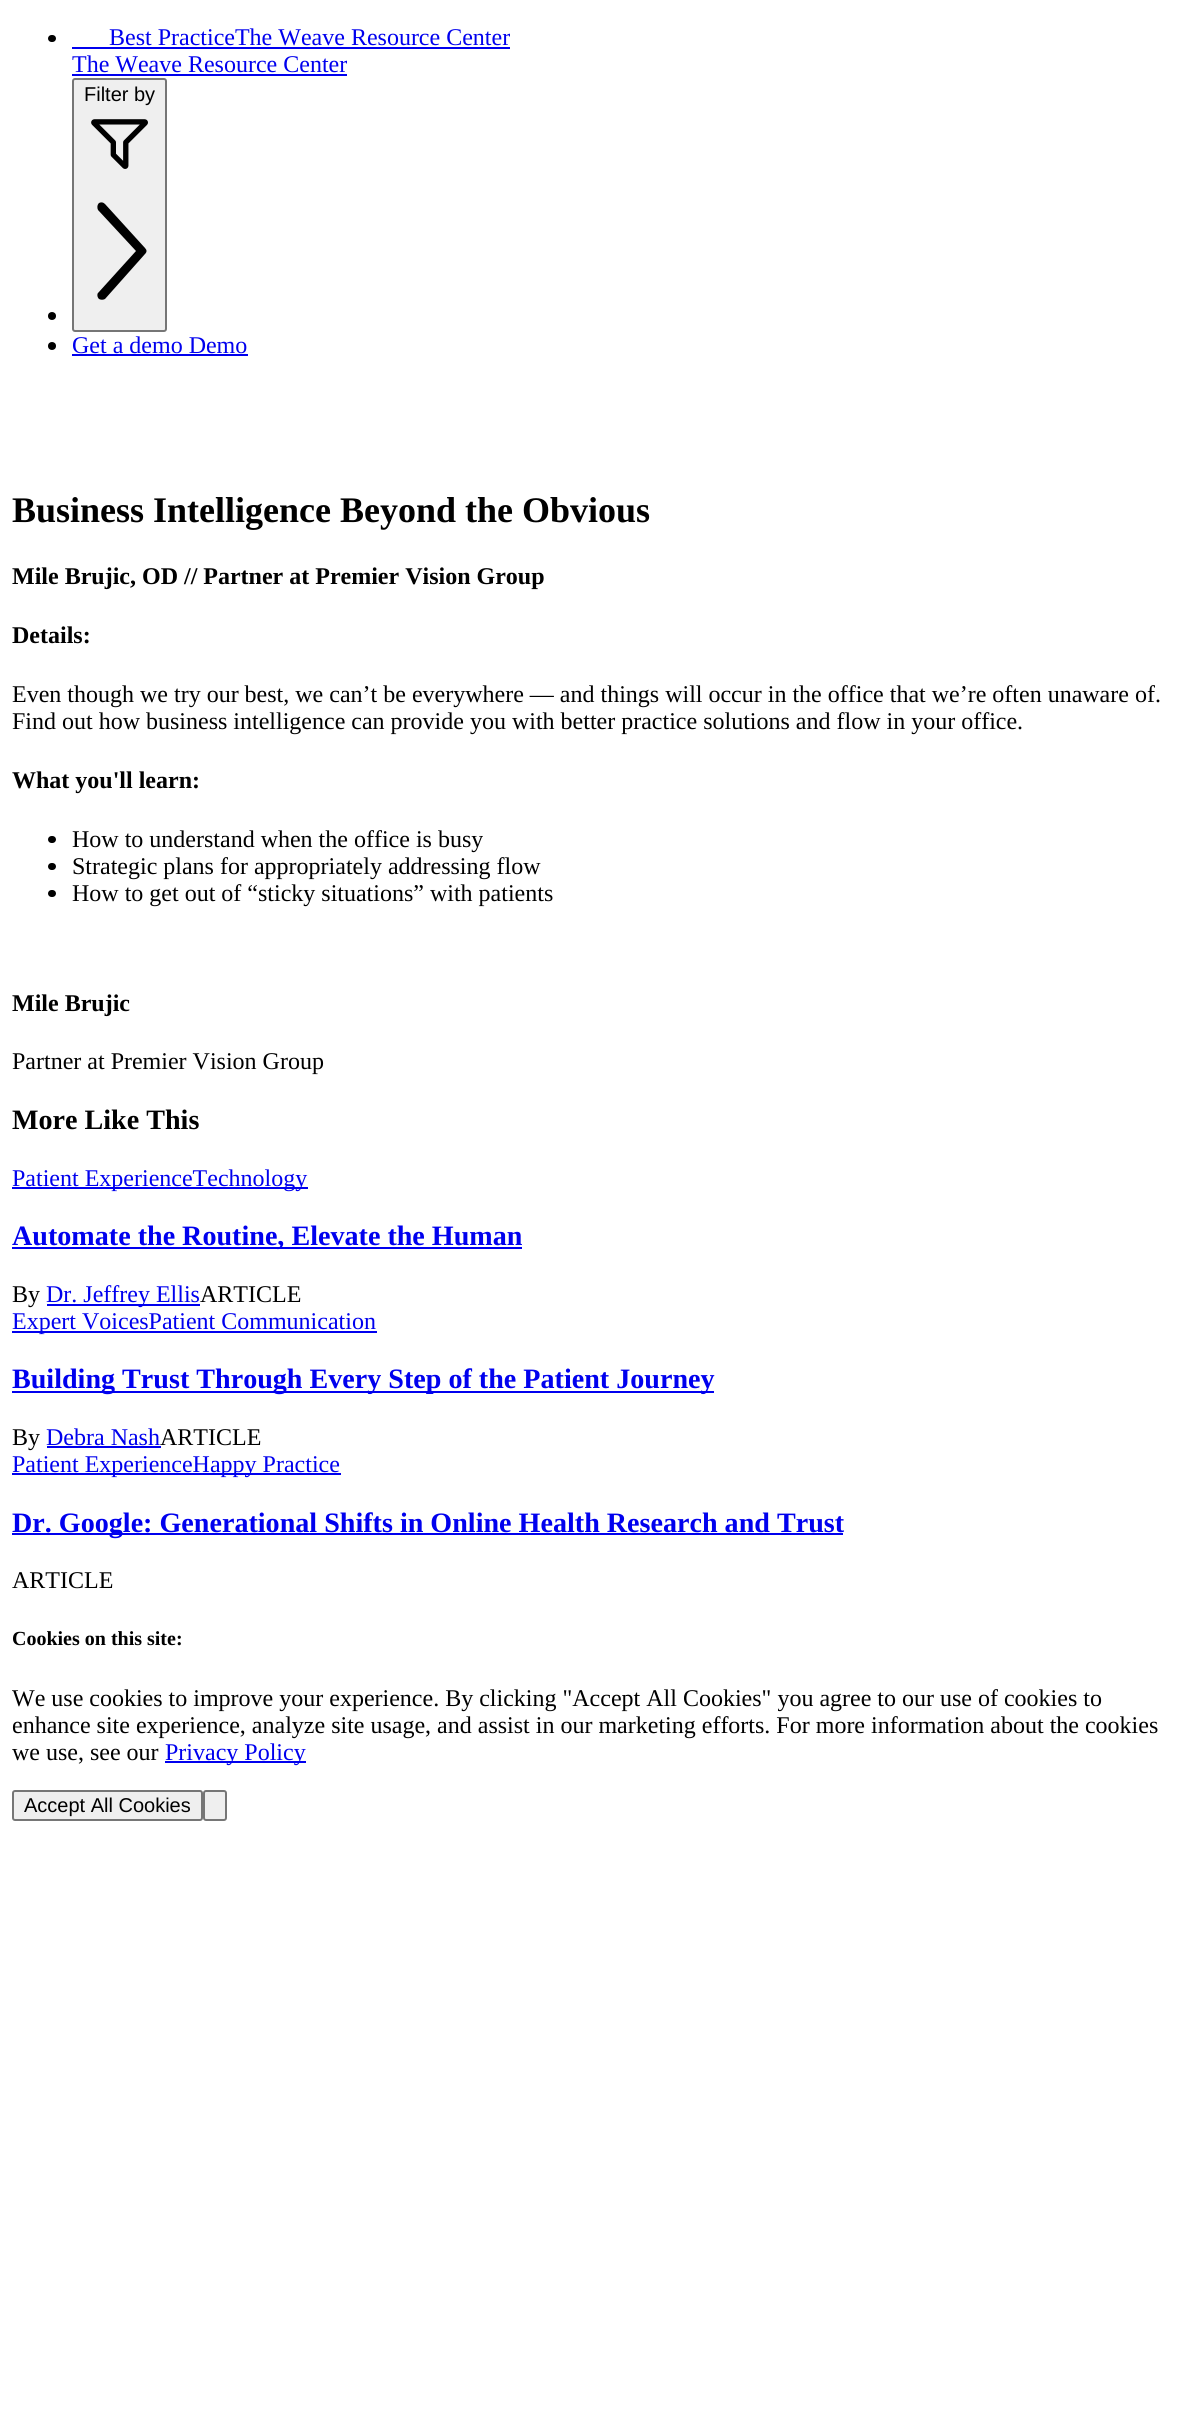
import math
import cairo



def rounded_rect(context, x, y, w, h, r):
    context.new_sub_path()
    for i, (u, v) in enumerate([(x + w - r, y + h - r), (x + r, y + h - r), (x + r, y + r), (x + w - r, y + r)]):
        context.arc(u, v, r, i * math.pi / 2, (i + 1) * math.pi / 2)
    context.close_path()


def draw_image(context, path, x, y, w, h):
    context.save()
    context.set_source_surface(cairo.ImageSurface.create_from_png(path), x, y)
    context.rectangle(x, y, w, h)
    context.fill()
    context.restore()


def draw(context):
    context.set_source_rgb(1, 1, 1)
    context.paint()
    context.set_source_rgb(0, 0, 0)
    rounded_rect(context, 48, 35, 8, 7, 3.5)
    context.fill()
    context.set_source_rgb(0, 0, 238 / 255)
    context.rectangle(72, 47, 438, 2)
    context.fill()
    context.rectangle(72, 74, 275, 2)
    context.fill()
    context.set_source_rgb(239 / 255, 239 / 255, 239 / 255)
    rounded_rect(context, 73, 79, 93, 252, 2)
    context.fill_preserve()
    context.set_source_rgb(118 / 255, 118 / 255, 118 / 255)
    context.stroke()
    draw_image(context, "images/1.png", 91, 119, 57, 50)
    context.set_source_rgb(0, 0, 0)
    context.new_path()
    context.move_to(145, 254)
    context.line_to(105, 299)
    context.curve_to(103, 300, 101, 300, 99, 299)
    context.curve_to(97, 297, 97, 294, 98, 293)
    context.line_to(136, 251)
    context.line_to(98, 210)
    context.curve_to(97, 208, 97, 205, 99, 203)
    context.curve_to(101, 202, 103, 202, 105, 204)
    context.line_to(145, 248)
    context.curve_to(147, 250, 147, 252, 145, 254)
    context.close_path()
    context.fill()
    context.arc(52, 316, 4, 0, 2 * math.pi)
    context.fill()
    context.arc(52, 346, 4, 0, 2 * math.pi)
    context.fill()
    context.set_source_rgb(0, 0, 238 / 255)
    context.rectangle(72, 354, 176, 2)
    context.fill()
    context.set_source_rgb(0, 0, 0)
    rounded_rect(context, 48, 836, 8, 7, 3.5)
    context.fill()
    rounded_rect(context, 48, 863, 8, 7, 3.5)
    context.fill()
    rounded_rect(context, 48, 890, 8, 7, 3.5)
    context.fill()
    context.set_source_rgb(0, 0, 238 / 255)
    context.rectangle(12, 1187, 296, 2)
    context.fill()
    context.rectangle(12, 1247, 510, 2)
    context.fill()
    context.rectangle(47, 1304, 153, 2)
    context.fill()
    context.rectangle(12, 1331, 365, 2)
    context.fill()
    context.rectangle(12, 1391, 702, 2)
    context.fill()
    context.rectangle(47, 1446, 114, 2)
    context.fill()
    context.rectangle(12, 1473, 329, 2)
    context.fill()
    context.rectangle(12, 1533, 831, 2)
    context.fill()
    context.rectangle(165, 1761, 141, 2)
    context.fill()
    context.set_source_rgb(239 / 255, 239 / 255, 239 / 255)
    rounded_rect(context, 13, 1791, 189, 29, 2)
    context.fill_preserve()
    context.set_source_rgb(118 / 255, 118 / 255, 118 / 255)
    context.stroke()
    context.set_source_rgb(239 / 255, 239 / 255, 239 / 255)
    rounded_rect(context, 204, 1791, 22, 29, 2)
    context.fill_preserve()
    context.set_source_rgb(118 / 255, 118 / 255, 118 / 255)
    context.stroke()
    context.select_font_face("Liberation Serif")
    context.set_font_size(24)
    context.set_source_rgb(0, 0, 238 / 255)
    context.move_to(109, 45)
    context.show_text("Best PracticeThe Weave Resource Center")
    context.move_to(72, 72)
    context.show_text("The Weave Resource Center")
    context.select_font_face("Liberation Sans")
    context.set_font_size(20)
    context.set_source_rgb(0, 0, 0)
    context.move_to(84, 101)
    context.show_text("Filter by")
    context.select_font_face("Liberation Serif")
    context.set_font_size(24)
    context.set_source_rgb(0, 0, 238 / 255)
    context.move_to(72, 353)
    context.show_text("Get a demo Demo")
    context.select_font_face("Liberation Serif", cairo.FontSlant.NORMAL, cairo.FontWeight.BOLD)
    context.set_font_size(36)
    context.set_source_rgb(0, 0, 0)
    context.move_to(12, 522)
    context.show_text("Business Intelligence Beyond the Obvious")
    context.set_font_size(24)
    context.move_to(12, 584)
    context.show_text("Mile Brujic, OD // Partner at Premier Vision Group")
    context.move_to(12, 643)
    context.show_text("Details:")
    context.select_font_face("Liberation Serif")
    context.move_to(12, 702)
    context.show_text("Even though we try our best, we can’t be everywhere — and things will occur in the office that we’re often unaware of.")
    context.move_to(12, 729)
    context.show_text("Find out how business intelligence can provide you with better practice solutions and flow in your office.")
    context.select_font_face("Liberation Serif", cairo.FontSlant.NORMAL, cairo.FontWeight.BOLD)
    context.move_to(12, 788)
    context.show_text("What you'll learn:")
    context.select_font_face("Liberation Serif")
    context.move_to(72, 847)
    context.show_text("How to understand when the office is busy")
    context.move_to(72, 874)
    context.show_text("Strategic plans for appropriately addressing flow")
    context.move_to(72, 901)
    context.show_text("How to get out of “sticky situations” with patients")
    context.select_font_face("Liberation Serif", cairo.FontSlant.NORMAL, cairo.FontWeight.BOLD)
    context.move_to(12, 1011)
    context.show_text("Mile Brujic")
    context.select_font_face("Liberation Serif")
    context.move_to(12, 1069)
    context.show_text("Partner at Premier Vision Group")
    context.select_font_face("Liberation Serif", cairo.FontSlant.NORMAL, cairo.FontWeight.BOLD)
    context.set_font_size(28.1)
    context.move_to(12, 1129)
    context.show_text("More Like This")
    context.select_font_face("Liberation Serif")
    context.set_font_size(24)
    context.set_source_rgb(0, 0, 238 / 255)
    context.move_to(12, 1186)
    context.show_text("Patient ExperienceTechnology")
    context.select_font_face("Liberation Serif", cairo.FontSlant.NORMAL, cairo.FontWeight.BOLD)
    context.set_font_size(28.1)
    context.move_to(12, 1245)
    context.show_text("Automate the Routine, Elevate the Human")
    context.select_font_face("Liberation Serif")
    context.set_font_size(24)
    context.set_source_rgb(0, 0, 0)
    context.move_to(12, 1302)
    context.show_text("By")
    context.set_source_rgb(0, 0, 238 / 255)
    context.move_to(46, 1302)
    context.show_text("Dr. Jeffrey Ellis")
    context.set_source_rgb(0, 0, 0)
    context.move_to(200, 1302)
    context.show_text("ARTICLE")
    context.set_source_rgb(0, 0, 238 / 255)
    context.move_to(12, 1329)
    context.show_text("Expert VoicesPatient Communication")
    context.select_font_face("Liberation Serif", cairo.FontSlant.NORMAL, cairo.FontWeight.BOLD)
    context.set_font_size(28.1)
    context.move_to(12, 1388)
    context.show_text("Building Trust Through Every Step of the Patient Journey")
    context.select_font_face("Liberation Serif")
    context.set_font_size(24)
    context.set_source_rgb(0, 0, 0)
    context.move_to(12, 1445)
    context.show_text("By")
    context.set_source_rgb(0, 0, 238 / 255)
    context.move_to(46, 1445)
    context.show_text("Debra Nash")
    context.set_source_rgb(0, 0, 0)
    context.move_to(160, 1445)
    context.show_text("ARTICLE")
    context.set_source_rgb(0, 0, 238 / 255)
    context.move_to(12, 1472)
    context.show_text("Patient ExperienceHappy Practice")
    context.select_font_face("Liberation Serif", cairo.FontSlant.NORMAL, cairo.FontWeight.BOLD)
    context.set_font_size(28.1)
    context.move_to(12, 1532)
    context.show_text("Dr. Google: Generational Shifts in Online Health Research and Trust")
    context.select_font_face("Liberation Serif")
    context.set_font_size(24)
    context.set_source_rgb(0, 0, 0)
    context.move_to(12, 1588)
    context.show_text("ARTICLE")
    context.select_font_face("Liberation Serif", cairo.FontSlant.NORMAL, cairo.FontWeight.BOLD)
    context.set_font_size(20)
    context.move_to(12, 1645)
    context.show_text("Cookies on this site:")
    context.select_font_face("Liberation Serif")
    context.set_font_size(24)
    context.move_to(12, 1706)
    context.show_text("We use cookies to improve your experience. By clicking \"Accept All Cookies\" you agree to our use of cookies to")
    context.move_to(12, 1733)
    context.show_text("enhance site experience, analyze site usage, and assist in our marketing efforts. For more information about the cookies")
    context.move_to(12, 1760)
    context.show_text("we use, see our")
    context.set_source_rgb(0, 0, 238 / 255)
    context.move_to(165, 1760)
    context.show_text("Privacy Policy")
    context.select_font_face("Liberation Sans")
    context.set_font_size(20)
    context.set_source_rgb(0, 0, 0)
    context.move_to(24, 1812)
    context.show_text("Accept All Cookies")


surface = cairo.ImageSurface(cairo.Format.RGB24, 1184, 2413)
context = cairo.Context(surface)
options = cairo.FontOptions()
options.set_hint_metrics(cairo.HintMetrics.OFF)
options.set_hint_style(cairo.HintStyle.NONE)
context.set_font_options(options)
context.set_miter_limit(4)
draw(context)
surface.write_to_png("out.png")
